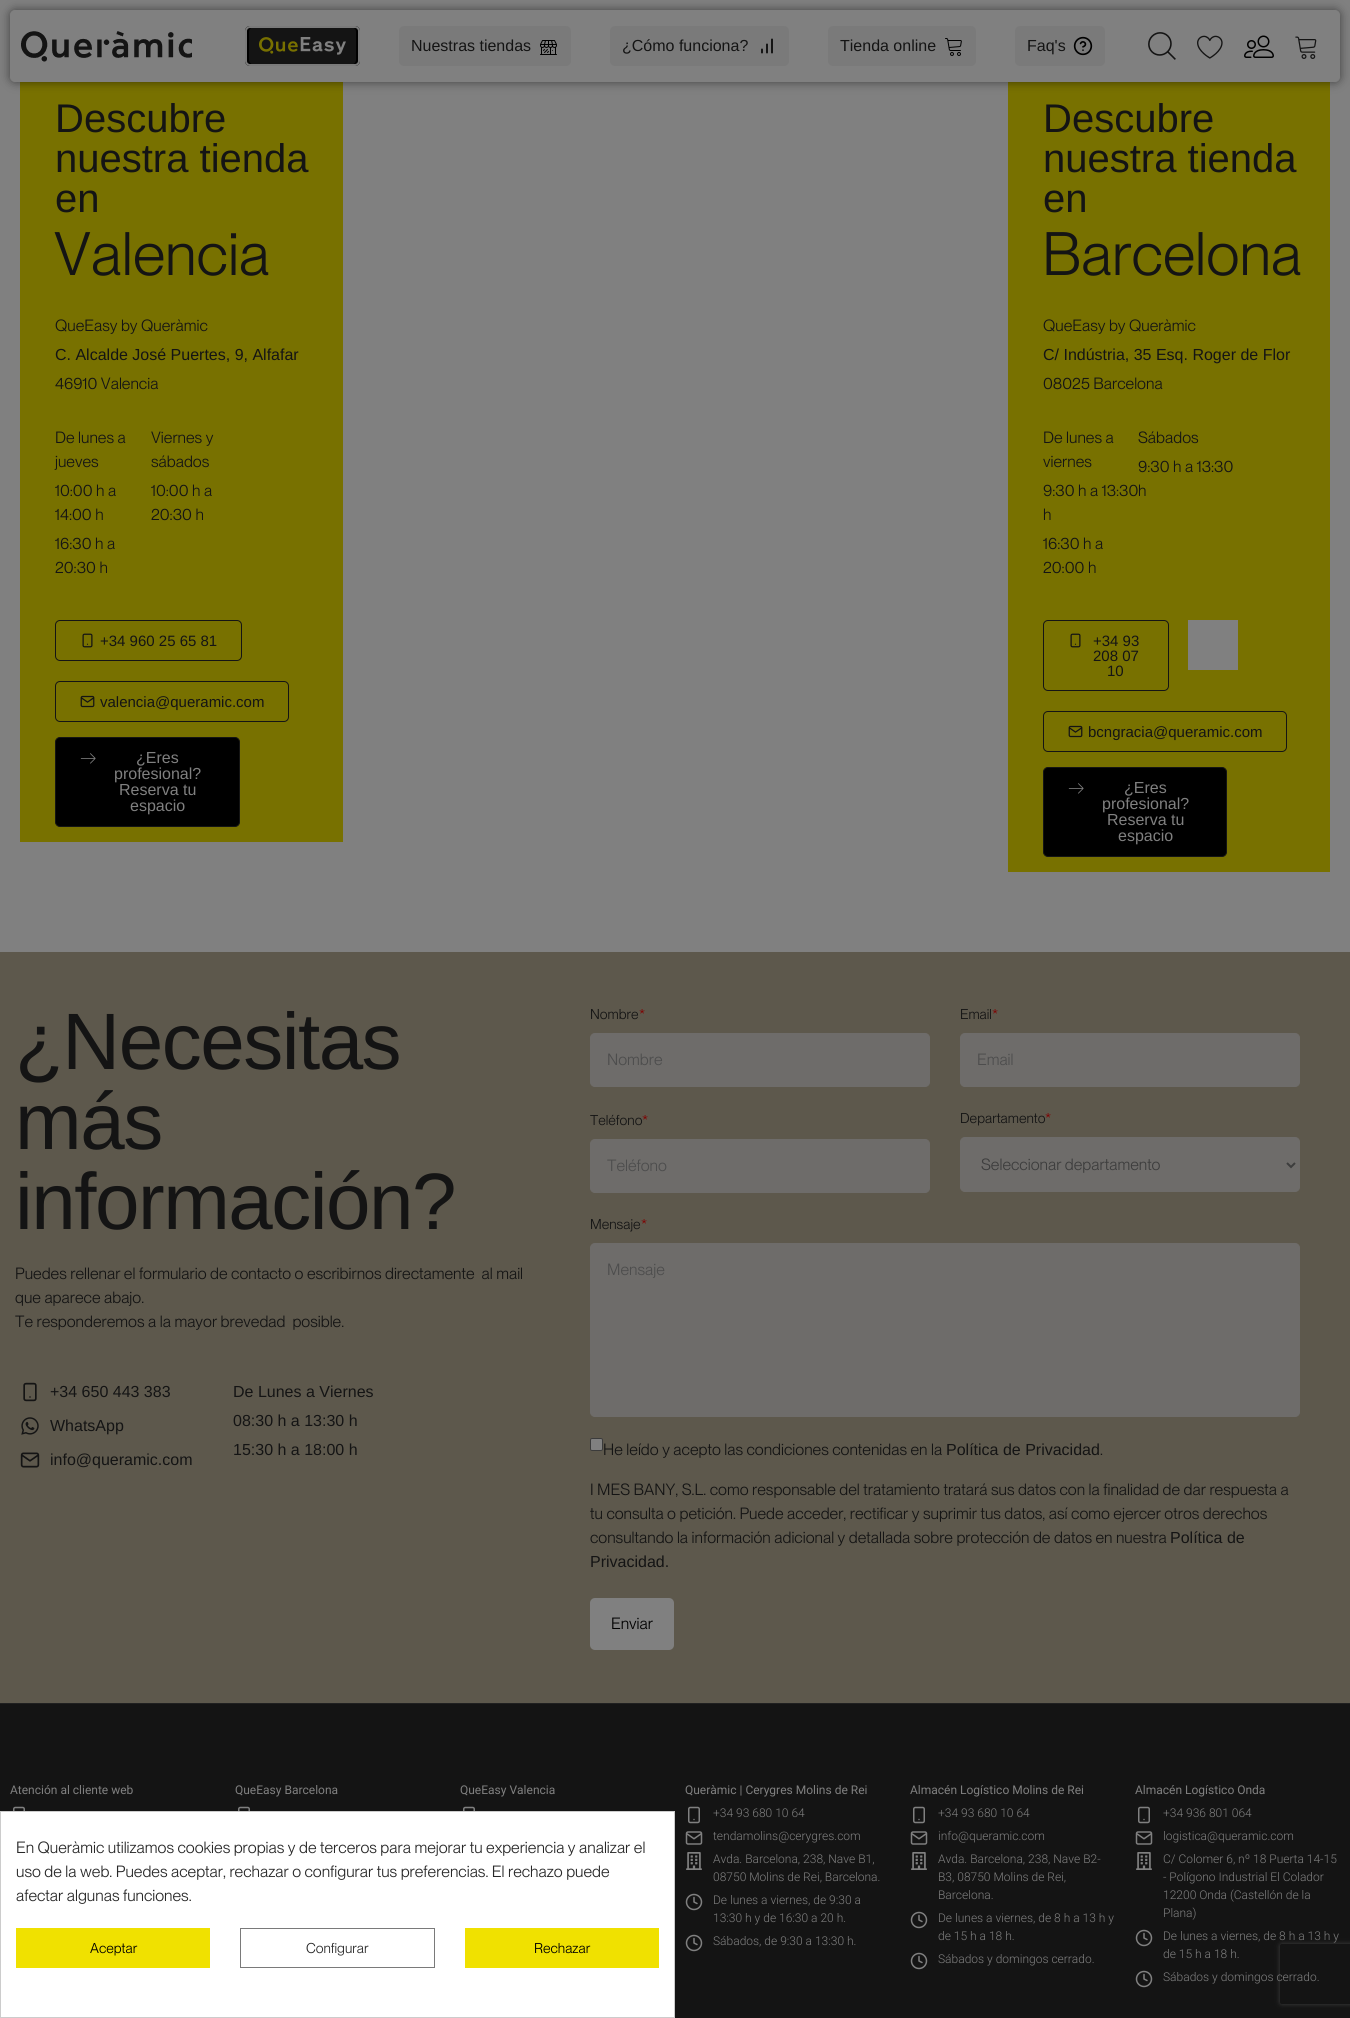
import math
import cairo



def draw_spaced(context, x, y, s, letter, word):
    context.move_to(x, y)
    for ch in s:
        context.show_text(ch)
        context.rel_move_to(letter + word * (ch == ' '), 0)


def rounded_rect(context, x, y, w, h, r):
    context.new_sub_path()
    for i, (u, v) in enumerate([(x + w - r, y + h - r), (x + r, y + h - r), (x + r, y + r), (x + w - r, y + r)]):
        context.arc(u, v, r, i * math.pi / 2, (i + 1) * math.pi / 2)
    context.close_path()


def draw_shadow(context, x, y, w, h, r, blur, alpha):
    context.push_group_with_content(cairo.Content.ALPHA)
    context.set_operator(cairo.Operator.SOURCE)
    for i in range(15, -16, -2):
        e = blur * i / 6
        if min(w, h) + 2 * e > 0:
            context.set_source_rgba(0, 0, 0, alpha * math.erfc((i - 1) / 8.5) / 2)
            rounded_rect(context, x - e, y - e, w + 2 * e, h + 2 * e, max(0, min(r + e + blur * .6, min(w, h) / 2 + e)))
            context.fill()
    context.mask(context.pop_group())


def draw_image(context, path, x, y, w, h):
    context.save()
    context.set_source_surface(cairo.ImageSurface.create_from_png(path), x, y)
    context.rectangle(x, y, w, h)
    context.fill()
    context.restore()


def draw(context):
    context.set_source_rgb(128 / 255, 128 / 255, 128 / 255)
    context.paint()
    context.set_source_rgb(120 / 255, 113 / 255, 0)
    context.rectangle(20, 82, 323, 760)
    context.fill()
    context.rectangle(1008, 82, 322, 790)
    context.fill()
    context.set_source_rgb(0, 0, 0)
    draw_shadow(context, 10, 10, 1330, 72, 5, 5, 0.5)
    context.set_source_rgb(128 / 255, 128 / 255, 128 / 255)
    rounded_rect(context, 10.5, 10.5, 1329, 71, 4.5)
    context.fill_preserve()
    context.set_line_width(1)
    context.stroke()
    draw_image(context, "images/1.png", 21, 31, 171, 31)
    context.set_source_rgb(0, 0, 0)
    rounded_rect(context, 245, 26, 115, 40, 5)
    context.fill()
    draw_image(context, "images/2.png", 249, 28, 107, 36)
    rounded_rect(context, 246, 27, 113, 38, 4)
    context.set_source_rgb(122 / 255, 122 / 255, 122 / 255)
    context.set_line_width(2)
    context.stroke()
    rounded_rect(context, 399, 26, 172, 40, 5)
    context.fill()
    draw_image(context, "images/3.png", 540, 40, 17, 15)
    rounded_rect(context, 610, 26, 179, 40, 5)
    context.fill()
    draw_image(context, "images/4.png", 761, 38, 12, 16)
    rounded_rect(context, 828, 26, 148, 40, 5)
    context.fill()
    draw_image(context, "images/5.png", 945, 38, 17, 18)
    rounded_rect(context, 1015, 26, 90, 40, 5)
    context.fill()
    draw_image(context, "images/6.png", 1073, 36, 20, 20)
    draw_image(context, "images/7.png", 1148, 32, 28, 28)
    draw_image(context, "images/8.png", 1197, 35, 26, 24)
    draw_image(context, "images/9.png", 1244, 35, 30, 23)
    draw_image(context, "images/10.png", 1295, 36, 22, 23)
    rounded_rect(context, 55.5, 620.5, 186, 40, 4.5)
    context.set_source_rgb(20 / 255, 20 / 255, 20 / 255)
    context.set_line_width(1)
    context.stroke()
    draw_image(context, "images/11.png", 82, 633, 11, 15)
    rounded_rect(context, 55.5, 681.5, 233, 40, 4.5)
    context.stroke()
    draw_image(context, "images/12.png", 80, 695, 15, 13)
    context.set_source_rgb(0, 0, 0)
    rounded_rect(context, 55.5, 737.5, 184, 89, 4.5)
    context.fill_preserve()
    context.set_source_rgb(20 / 255, 20 / 255, 20 / 255)
    context.stroke()
    draw_image(context, "images/13.png", 80, 753, 16, 11)
    context.set_source_rgb(128 / 255, 128 / 255, 128 / 255)
    context.rectangle(1188, 620, 50, 50)
    context.fill()
    rounded_rect(context, 1043.5, 620.5, 125, 70, 4.5)
    context.set_source_rgb(20 / 255, 20 / 255, 20 / 255)
    context.stroke()
    draw_image(context, "images/11.png", 1070, 633, 11, 15)
    rounded_rect(context, 1043.5, 711.5, 243, 40, 4.5)
    context.stroke()
    draw_image(context, "images/12.png", 1068, 725, 15, 13)
    context.set_source_rgb(0, 0, 0)
    rounded_rect(context, 1043.5, 767.5, 183, 89, 4.5)
    context.fill_preserve()
    context.set_source_rgb(20 / 255, 20 / 255, 20 / 255)
    context.stroke()
    draw_image(context, "images/13.png", 1068, 783, 16, 11)
    context.set_source_rgb(93 / 255, 88 / 255, 76 / 255)
    context.rectangle(0, 952, 1350, 751)
    context.fill()
    draw_image(context, "images/14.png", 23, 1382, 14, 20)
    draw_image(context, "images/15.png", 21, 1417, 18, 18)
    draw_image(context, "images/16.png", 20, 1452, 20, 16)
    context.set_source_rgb(110 / 255, 108 / 255, 106 / 255)
    rounded_rect(context, 590.5, 1033.5, 339, 53, 4.5)
    context.fill_preserve()
    context.stroke()
    rounded_rect(context, 590.5, 1139.5, 339, 53, 4.5)
    context.fill_preserve()
    context.stroke()
    rounded_rect(context, 960.5, 1033.5, 339, 53, 4.5)
    context.fill_preserve()
    context.stroke()
    rounded_rect(context, 960.5, 1137.5, 339, 54, 4.5)
    context.fill_preserve()
    context.stroke()
    context.new_path()
    context.move_to(1287, 1163)
    context.line_to(1291, 1167)
    context.line_to(1295, 1163)
    context.set_source_rgb(61 / 255, 61 / 255, 61 / 255)
    context.set_line_width(2)
    context.stroke()
    context.set_source_rgb(110 / 255, 108 / 255, 106 / 255)
    rounded_rect(context, 590.5, 1243.5, 709, 173, 4.5)
    context.fill_preserve()
    context.set_line_width(1)
    context.stroke()
    context.set_source_rgb(128 / 255, 128 / 255, 128 / 255)
    rounded_rect(context, 590.5, 1438.5, 12, 12, 1.5)
    context.fill_preserve()
    context.set_source_rgb(59 / 255, 59 / 255, 59 / 255)
    context.stroke()
    context.set_source_rgb(128 / 255, 128 / 255, 128 / 255)
    rounded_rect(context, 590, 1598, 84, 52, 5)
    context.fill()
    context.set_source_rgb(20 / 255, 20 / 255, 20 / 255)
    context.rectangle(0, 1704, 1350, 314)
    context.fill()
    context.set_source_rgb(32 / 255, 32 / 255, 32 / 255)
    context.rectangle(0, 1703, 1350, 1)
    context.fill()
    draw_image(context, "images/17.png", 13, 1806, 12, 5)
    draw_image(context, "images/17.png", 238, 1806, 12, 5)
    draw_image(context, "images/17.png", 463, 1806, 12, 5)
    draw_image(context, "images/18.png", 688, 1806, 12, 18)
    draw_image(context, "images/19.png", 685, 1831, 18, 14)
    draw_image(context, "images/20.png", 686, 1852, 16, 18)
    draw_image(context, "images/21.png", 685, 1893, 18, 18)
    draw_image(context, "images/21.png", 685, 1934, 18, 18)
    draw_image(context, "images/18.png", 913, 1806, 12, 18)
    draw_image(context, "images/19.png", 910, 1831, 18, 14)
    draw_image(context, "images/20.png", 911, 1852, 16, 18)
    draw_image(context, "images/21.png", 910, 1911, 18, 18)
    draw_image(context, "images/21.png", 910, 1952, 18, 18)
    draw_image(context, "images/18.png", 1138, 1806, 12, 18)
    draw_image(context, "images/19.png", 1135, 1831, 18, 14)
    draw_image(context, "images/20.png", 1136, 1852, 16, 18)
    draw_image(context, "images/21.png", 1135, 1929, 18, 18)
    draw_image(context, "images/21.png", 1135, 1970, 18, 18)
    context.set_source_rgb(1, 1, 1)
    context.rectangle(0.5, 1811.5, 674, 206)
    context.fill_preserve()
    context.set_source_rgb(204 / 255, 204 / 255, 204 / 255)
    context.stroke()
    context.set_source_rgb(240 / 255, 225 / 255, 0)
    context.rectangle(16, 1928, 194, 40)
    context.fill()
    context.rectangle(240.5, 1928.5, 194, 39)
    context.set_source_rgb(122 / 255, 122 / 255, 122 / 255)
    context.stroke()
    context.set_source_rgb(240 / 255, 225 / 255, 0)
    context.rectangle(465, 1928, 194, 40)
    context.fill()
    context.save()
    context.set_fill_rule(cairo.FillRule.EVEN_ODD)
    context.new_path()
    context.move_to(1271, 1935)
    context.line_to(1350, 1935)
    context.line_to(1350, 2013)
    context.line_to(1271, 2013)
    context.close_path()
    context.move_to(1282, 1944)
    context.line_to(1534, 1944)
    context.curve_to(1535, 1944, 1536, 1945, 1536, 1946)
    context.line_to(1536, 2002)
    context.curve_to(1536, 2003, 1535, 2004, 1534, 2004)
    context.line_to(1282, 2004)
    context.curve_to(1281, 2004, 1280, 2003, 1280, 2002)
    context.line_to(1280, 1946)
    context.curve_to(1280, 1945, 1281, 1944, 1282, 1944)
    context.close_path()
    context.clip()
    context.set_source_rgb(64 / 255, 64 / 255, 64 / 255)
    draw_shadow(context, 1280, 1944, 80, 60, 2, 2.5, 1)
    context.restore()
    context.select_font_face("Liberation Sans")
    context.set_font_size(16)
    context.set_source_rgb(20 / 255, 20 / 255, 20 / 255)
    context.move_to(411, 51)
    context.show_text("Nuestras tiendas")
    context.move_to(622, 51)
    context.show_text("¿Cómo funciona?")
    context.move_to(840, 51)
    context.show_text("Tienda online")
    context.move_to(1027, 51)
    context.show_text("Faq's")
    context.set_font_size(40)
    context.move_to(55, 132)
    context.show_text("Descubre")
    context.move_to(55, 172)
    context.show_text("nuestra tienda")
    context.move_to(55, 212)
    context.show_text("en")
    context.select_font_face("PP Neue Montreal")
    context.set_font_size(60)
    context.move_to(54, 275)
    context.show_text("Valencia")
    context.set_font_size(16)
    context.move_to(55, 331)
    context.show_text("QueEasy by Queràmic")
    context.select_font_face("Liberation Sans")
    context.move_to(55, 360)
    context.show_text("C. Alcalde José Puertes, 9, Alfafar")
    context.select_font_face("PP Neue Montreal")
    context.move_to(55, 389)
    context.show_text("46910 Valencia")
    context.move_to(55, 443)
    context.show_text("De lunes a")
    context.move_to(55, 467)
    context.show_text("jueves")
    context.move_to(55, 496)
    context.show_text("10:00 h a")
    context.move_to(55, 520)
    context.show_text("14:00 h")
    context.move_to(55, 549)
    context.show_text("16:30 h a")
    context.move_to(55, 573)
    context.show_text("20:30 h")
    context.move_to(151, 443)
    context.show_text("Viernes y")
    context.move_to(151, 467)
    context.show_text("sábados")
    context.move_to(151, 496)
    context.show_text("10:00 h a")
    context.move_to(151, 520)
    context.show_text("20:30 h")
    context.select_font_face("Liberation Sans")
    context.set_font_size(15)
    context.move_to(100, 646)
    context.show_text("+34 960 25 65 81")
    context.move_to(100, 707)
    context.show_text("valencia@queramic.com")
    context.set_font_size(16)
    context.set_source_rgb(128 / 255, 128 / 255, 128 / 255)
    context.move_to(136, 763)
    context.show_text("¿Eres")
    context.move_to(114, 779)
    context.show_text("profesional?")
    context.move_to(119, 795)
    context.show_text("Reserva tu")
    context.move_to(130, 811)
    context.show_text("espacio")
    context.set_font_size(40)
    context.set_source_rgb(20 / 255, 20 / 255, 20 / 255)
    context.move_to(1043, 132)
    context.show_text("Descubre")
    context.move_to(1043, 172)
    context.show_text("nuestra tienda")
    context.move_to(1043, 212)
    context.show_text("en")
    context.select_font_face("PP Neue Montreal")
    context.set_font_size(60)
    context.move_to(1042, 275)
    context.show_text("Barcelona")
    context.set_font_size(16)
    context.move_to(1043, 331)
    context.show_text("QueEasy by Queràmic")
    context.select_font_face("Liberation Sans")
    context.move_to(1043, 360)
    context.show_text("C/ Indústria, 35 Esq. Roger de Flor")
    context.select_font_face("PP Neue Montreal")
    context.move_to(1043, 389)
    context.show_text("08025 Barcelona")
    context.move_to(1043, 443)
    context.show_text("De lunes a")
    context.move_to(1043, 467)
    context.show_text("viernes")
    context.move_to(1043, 496)
    context.show_text("9:30 h a 13:30")
    context.move_to(1043, 520)
    context.show_text("h")
    context.move_to(1043, 549)
    context.show_text("16:30 h a")
    context.move_to(1043, 573)
    context.show_text("20:00 h")
    context.move_to(1138, 443)
    context.show_text("Sábados")
    context.move_to(1138, 472)
    context.show_text("9:30 h a 13:30")
    context.move_to(1138, 496)
    context.show_text("h")
    context.select_font_face("Liberation Sans")
    context.set_font_size(15)
    context.move_to(1093, 646)
    context.show_text("+34 93")
    context.move_to(1093, 661)
    context.show_text("208 07")
    context.move_to(1107, 676)
    context.show_text("10")
    context.move_to(1088, 737)
    context.show_text("bcngracia@queramic.com")
    context.set_font_size(16)
    context.set_source_rgb(128 / 255, 128 / 255, 128 / 255)
    context.move_to(1124, 793)
    context.show_text("¿Eres")
    context.move_to(1102, 809)
    context.show_text("profesional?")
    context.move_to(1107, 825)
    context.show_text("Reserva tu")
    context.move_to(1118, 841)
    context.show_text("espacio")
    context.set_font_size(80)
    context.set_source_rgb(20 / 255, 20 / 255, 20 / 255)
    draw_spaced(context, 15, 1069, "¿Necesitas", -1.5, 0)
    draw_spaced(context, 15, 1149, "más", -1.5, 0)
    draw_spaced(context, 15, 1229, "información?", -1.5, 0)
    context.select_font_face("PP Neue Montreal")
    context.set_font_size(16)
    context.move_to(15, 1279)
    context.show_text("Puedes rellenar el formulario de contacto o escribirnos directamente  al mail")
    context.move_to(15, 1303)
    context.show_text("que aparece abajo.")
    context.move_to(15, 1327)
    context.show_text("Te responderemos a la mayor brevedad  posible.")
    context.select_font_face("Liberation Sans")
    context.move_to(50, 1397)
    context.show_text("+34 650 443 383")
    context.move_to(50, 1431)
    context.show_text("WhatsApp")
    context.move_to(50, 1465)
    context.show_text("info@queramic.com")
    context.move_to(233, 1397)
    context.show_text("De Lunes a Viernes")
    context.move_to(233, 1426)
    context.show_text("08:30 h a 13:30 h")
    context.move_to(233, 1455)
    context.show_text("15:30 h a 18:00 h")
    context.select_font_face("PP Neue Montreal")
    context.set_font_size(14)
    context.move_to(590, 1019)
    context.show_text("Nombre")
    context.set_source_rgb(128 / 255, 0, 0)
    context.move_to(639, 1019)
    context.show_text("*")
    context.set_font_size(16)
    context.set_source_rgb(77 / 255, 77 / 255, 77 / 255)
    context.move_to(607, 1065)
    context.show_text("Nombre")
    context.set_font_size(14)
    context.set_source_rgb(20 / 255, 20 / 255, 20 / 255)
    context.move_to(590, 1125)
    context.show_text("Teléfono")
    context.set_source_rgb(128 / 255, 0, 0)
    context.move_to(642, 1125)
    context.show_text("*")
    context.set_font_size(16)
    context.set_source_rgb(77 / 255, 77 / 255, 77 / 255)
    context.move_to(607, 1171)
    context.show_text("Teléfono")
    context.set_font_size(14)
    context.set_source_rgb(20 / 255, 20 / 255, 20 / 255)
    context.move_to(960, 1019)
    context.show_text("Email")
    context.set_source_rgb(128 / 255, 0, 0)
    context.move_to(992, 1019)
    context.show_text("*")
    context.set_font_size(16)
    context.set_source_rgb(77 / 255, 77 / 255, 77 / 255)
    context.move_to(977, 1065)
    context.show_text("Email")
    context.set_font_size(14)
    context.set_source_rgb(20 / 255, 20 / 255, 20 / 255)
    context.move_to(960, 1123)
    context.show_text("Departamento")
    context.set_source_rgb(128 / 255, 0, 0)
    context.move_to(1045, 1123)
    context.show_text("*")
    context.set_font_size(16)
    context.set_source_rgb(61 / 255, 61 / 255, 61 / 255)
    context.move_to(981, 1170)
    context.show_text("Seleccionar departamento")
    context.set_font_size(14)
    context.set_source_rgb(20 / 255, 20 / 255, 20 / 255)
    context.move_to(590, 1229)
    context.show_text("Mensaje")
    context.set_source_rgb(128 / 255, 0, 0)
    context.move_to(641, 1229)
    context.show_text("*")
    context.set_font_size(16)
    context.set_source_rgb(77 / 255, 77 / 255, 77 / 255)
    context.move_to(607, 1275)
    context.show_text("Mensaje")
    context.set_source_rgb(20 / 255, 20 / 255, 20 / 255)
    context.move_to(603, 1455)
    context.show_text("He leído y acepto las condiciones contenidas en la")
    context.select_font_face("Liberation Sans")
    context.move_to(946, 1455)
    context.show_text("Política de Privacidad")
    context.select_font_face("PP Neue Montreal")
    context.move_to(1100, 1455)
    context.show_text(".")
    context.move_to(590, 1495)
    context.show_text("I MES BANY, S.L. como responsable del tratamiento tratará sus datos con la finalidad de dar respuesta a")
    context.move_to(590, 1519)
    context.show_text("tu consulta o petición. Puede acceder, rectificar y suprimir tus datos, así como ejercer otros derechos")
    context.move_to(590, 1543)
    context.show_text("consultando la información adicional y detallada sobre protección de datos en nuestra")
    context.select_font_face("Liberation Sans")
    context.move_to(1170, 1543)
    context.show_text("Política de")
    context.move_to(590, 1567)
    context.show_text("Privacidad.")
    context.select_font_face("PP Neue Montreal")
    context.set_source_rgb(0, 0, 0)
    context.move_to(611, 1629)
    context.show_text("Enviar")
    context.select_font_face("Roboto")
    context.set_font_size(12)
    context.set_source_rgb(128 / 255, 128 / 255, 128 / 255)
    context.move_to(10, 1794)
    context.show_text("Atención al cliente web")
    context.move_to(235, 1794)
    context.show_text("QueEasy Barcelona")
    context.move_to(460, 1794)
    context.show_text("QueEasy Valencia")
    context.move_to(685, 1794)
    context.show_text("Queràmic | Cerygres Molins de Rei")
    context.select_font_face("Roboto Light")
    context.move_to(713, 1817)
    context.show_text("+34 93 680 10 64")
    context.move_to(713, 1840)
    context.show_text("tendamolins@cerygres.com")
    context.move_to(713, 1863)
    context.show_text("Avda. Barcelona, 238, Nave B1,")
    context.move_to(713, 1881)
    context.show_text("08750 Molins de Rei, Barcelona.")
    context.move_to(713, 1904)
    context.show_text("De lunes a viernes, de 9:30 a")
    context.move_to(713, 1922)
    context.show_text("13:30 h y de 16:30 a 20 h.")
    context.move_to(713, 1945)
    context.show_text("Sábados, de 9:30 a 13:30 h.")
    context.select_font_face("Roboto")
    context.move_to(910, 1794)
    context.show_text("Almacén Logístico Molins de Rei")
    context.select_font_face("Roboto Light")
    context.move_to(938, 1817)
    context.show_text("+34 93 680 10 64")
    context.move_to(938, 1840)
    context.show_text("info@queramic.com")
    context.move_to(938, 1863)
    context.show_text("Avda. Barcelona, 238, Nave B2-")
    context.move_to(938, 1881)
    context.show_text("B3, 08750 Molins de Rei,")
    context.move_to(938, 1899)
    context.show_text("Barcelona.")
    context.move_to(938, 1922)
    context.show_text("De lunes a viernes, de 8 h a 13 h y")
    context.move_to(938, 1940)
    context.show_text("de 15 h a 18 h.")
    context.move_to(938, 1963)
    context.show_text("Sábados y domingos cerrado.")
    context.select_font_face("Roboto")
    context.move_to(1135, 1794)
    context.show_text("Almacén Logístico Onda")
    context.select_font_face("Roboto Light")
    context.move_to(1163, 1817)
    context.show_text("+34 936 801 064")
    context.move_to(1163, 1840)
    context.show_text("logistica@queramic.com")
    context.move_to(1163, 1863)
    context.show_text("C/ Colomer 6, nº 18 Puerta 14-15")
    context.move_to(1163, 1881)
    context.show_text("- Polígono Industrial El Colador")
    context.move_to(1163, 1899)
    context.show_text("12200 Onda (Castellón de la")
    context.move_to(1163, 1917)
    context.show_text("Plana)")
    context.move_to(1163, 1940)
    context.show_text("De lunes a viernes, de 8 h a 13 h y")
    context.move_to(1163, 1958)
    context.show_text("de 15 h a 18 h.")
    context.move_to(1163, 1981)
    context.show_text("Sábados y domingos cerrado.")
    context.select_font_face("PP Neue Montreal")
    context.set_font_size(16)
    context.set_source_rgb(40 / 255, 40 / 255, 40 / 255)
    context.move_to(16, 1853)
    context.show_text("En Queràmic utilizamos cookies propias y de terceros para mejorar tu experiencia y analizar el")
    context.move_to(16, 1877)
    context.show_text("uso de la web. Puedes aceptar, rechazar o configurar tus preferencias. El rechazo puede")
    context.move_to(16, 1901)
    context.show_text("afectar algunas funciones.")
    context.set_font_size(14)
    context.set_source_rgb(0, 0, 0)
    context.move_to(90, 1953)
    context.show_text("Aceptar")
    context.set_source_rgb(40 / 255, 40 / 255, 40 / 255)
    context.move_to(306, 1953)
    context.show_text("Configurar")
    context.set_source_rgb(0, 0, 0)
    context.move_to(534, 1953)
    context.show_text("Rechazar")


surface = cairo.ImageSurface(cairo.Format.RGB24, 1350, 2018)
context = cairo.Context(surface)
options = cairo.FontOptions()
options.set_hint_metrics(cairo.HintMetrics.OFF)
options.set_hint_style(cairo.HintStyle.NONE)
context.set_font_options(options)
context.set_miter_limit(4)
draw(context)
surface.write_to_png("out.png")
